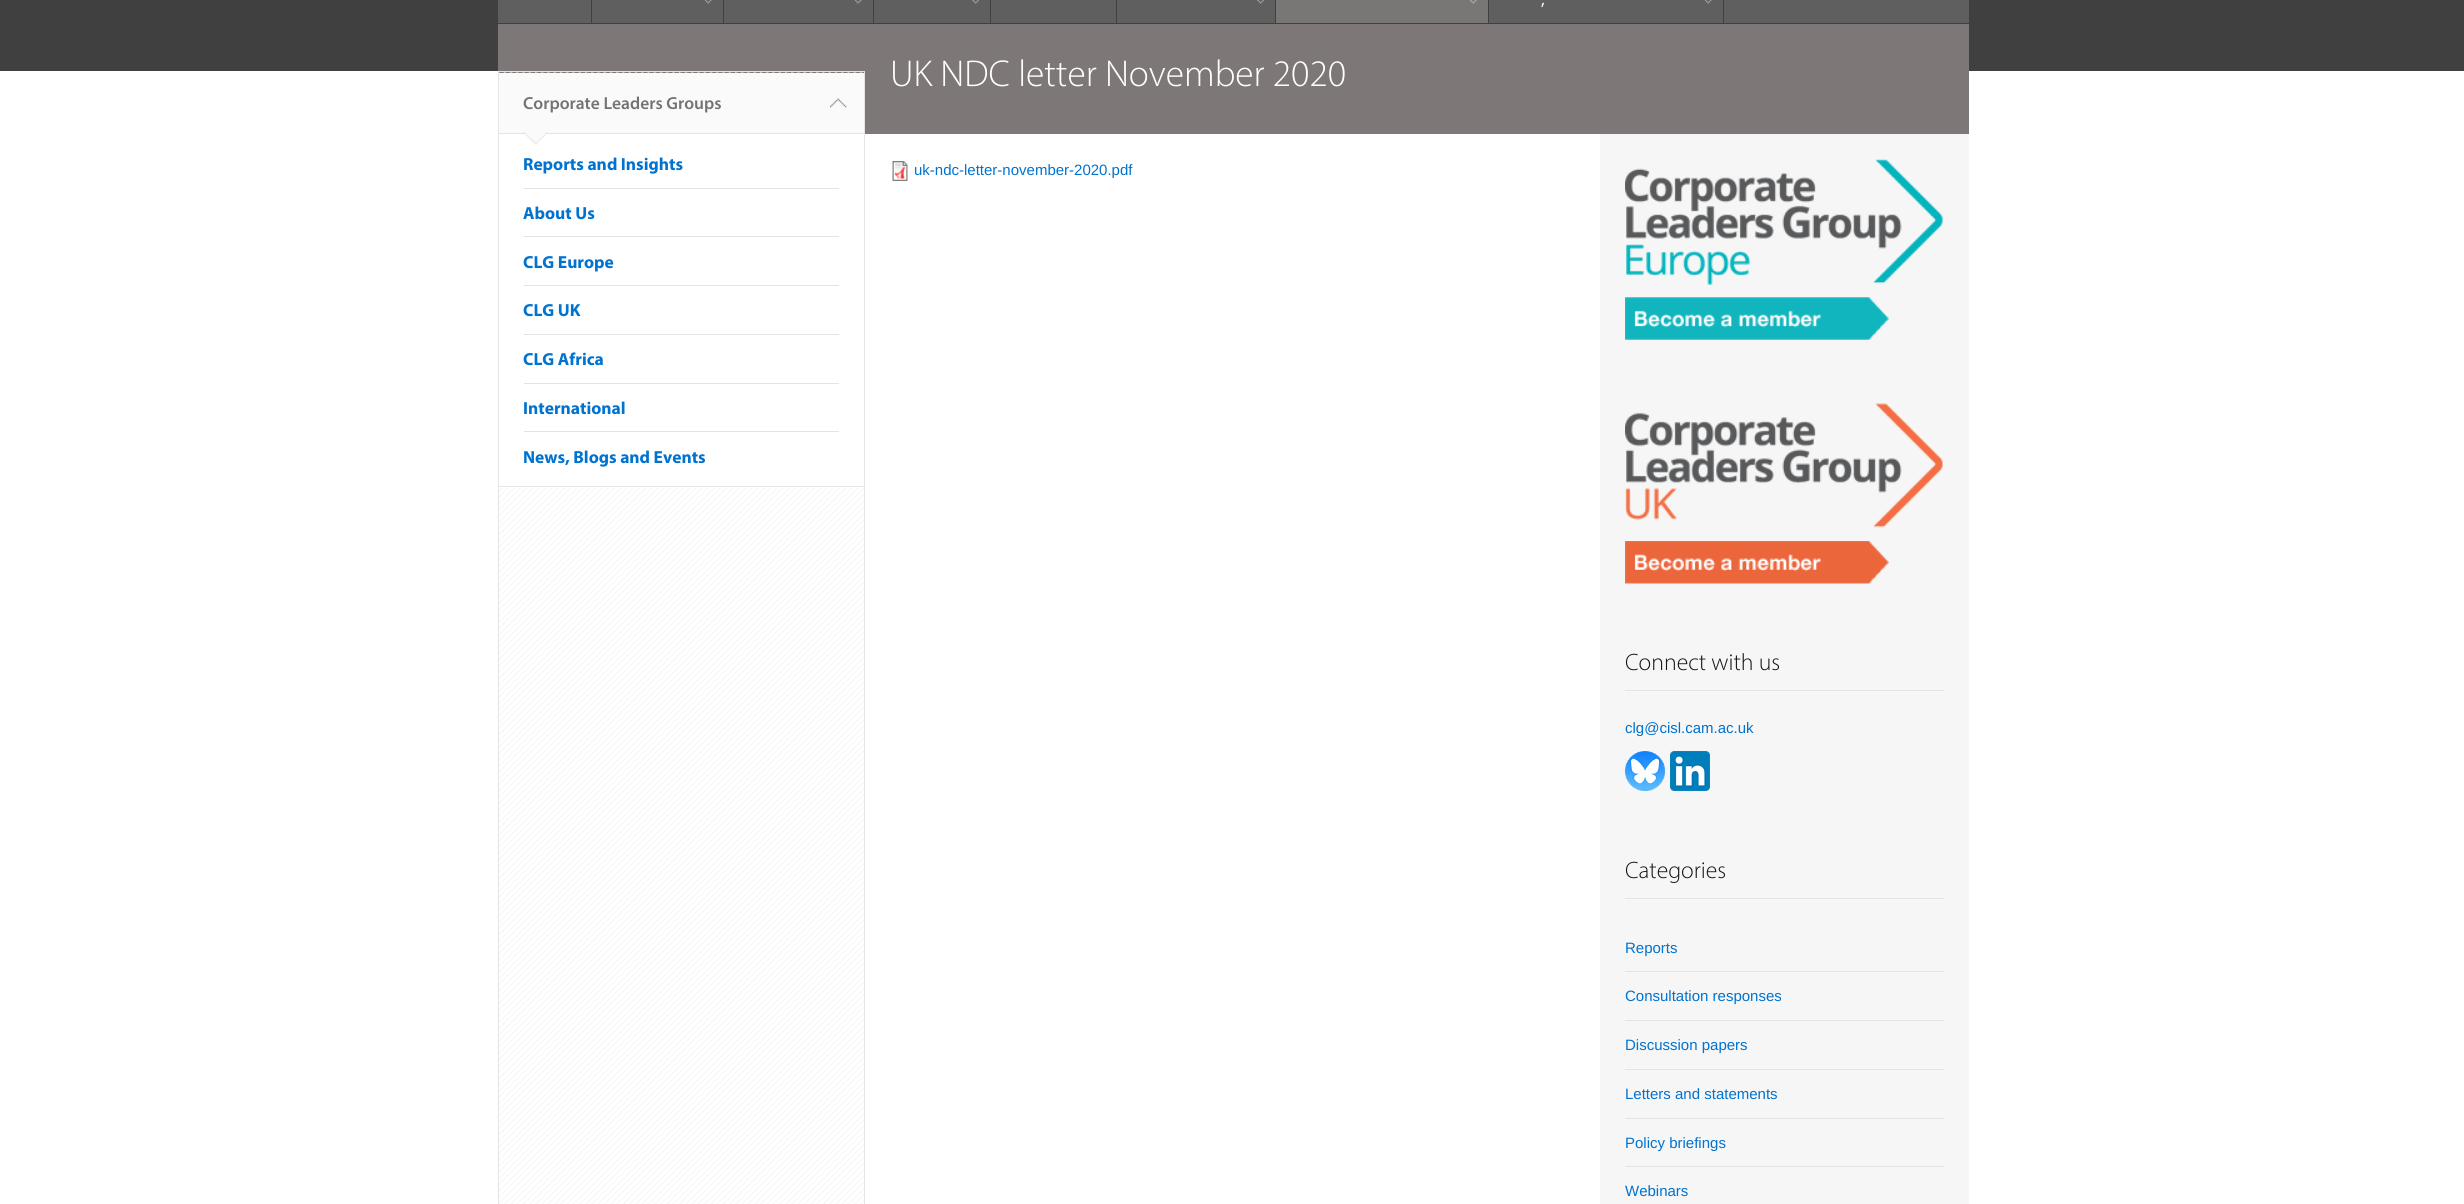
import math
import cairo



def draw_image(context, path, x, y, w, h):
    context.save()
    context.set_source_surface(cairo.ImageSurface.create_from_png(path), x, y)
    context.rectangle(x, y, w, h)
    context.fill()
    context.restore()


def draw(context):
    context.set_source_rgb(64 / 255, 64 / 255, 64 / 255)
    context.paint()
    context.set_source_rgb(95 / 255, 95 / 255, 95 / 255)
    context.rectangle(1724, 0, 245, 23)
    context.fill()
    context.rectangle(498, 0, 225, 23)
    context.fill()
    context.set_source_rgb(64 / 255, 64 / 255, 64 / 255)
    context.rectangle(591, 0, 1, 24)
    context.fill()
    draw_image(context, "images/1.png", 704, 0, 8, 4)
    context.set_source_rgb(95 / 255, 95 / 255, 95 / 255)
    context.rectangle(724, 0, 149, 23)
    context.fill()
    draw_image(context, "images/2.png", 854, 0, 8, 4)
    context.rectangle(874, 0, 116, 23)
    context.fill()
    draw_image(context, "images/3.png", 972, 0, 7, 4)
    context.rectangle(991, 0, 284, 23)
    context.fill()
    context.set_source_rgb(64 / 255, 64 / 255, 64 / 255)
    context.rectangle(1116, 0, 1, 24)
    context.fill()
    draw_image(context, "images/4.png", 1257, 0, 7, 4)
    context.set_source_rgb(121 / 255, 118 / 255, 118 / 255)
    context.rectangle(1276, 0, 212, 23)
    context.fill()
    draw_image(context, "images/5.png", 1470, 0, 7, 4)
    context.set_source_rgb(95 / 255, 95 / 255, 95 / 255)
    context.rectangle(1489, 0, 234, 23)
    context.fill()
    draw_image(context, "images/1.png", 1704, 0, 8, 4)
    context.set_source_rgb(1, 1, 1)
    context.rectangle(0, 71, 2464, 1133)
    context.fill()
    context.set_source_rgb(125 / 255, 119 / 255, 119 / 255)
    context.rectangle(498, 24, 1471, 110)
    context.fill()
    draw_image(context, "images/6.png", 499, 72, 365, 1132)
    context.set_source_rgb(228 / 255, 228 / 255, 228 / 255)
    context.rectangle(498, 71, 367, 1)
    context.fill()
    context.rectangle(864, 71, 1, 1133)
    context.fill()
    context.rectangle(498, 71, 1, 1133)
    context.fill()
    context.set_source_rgb(1, 1, 1)
    context.rectangle(499, 134, 365, 354)
    context.fill()
    context.set_source_rgb(228 / 255, 228 / 255, 228 / 255)
    context.rectangle(499, 486, 365, 1)
    context.fill()
    context.set_source_rgb(250 / 255, 250 / 255, 250 / 255)
    context.rectangle(499, 73, 365, 60)
    context.fill()
    draw_image(context, "images/7.png", 830, 98, 17, 10)
    context.set_source_rgb(228 / 255, 228 / 255, 228 / 255)
    context.rectangle(499, 133, 365, 1)
    context.fill()
    draw_image(context, "images/8.png", 523, 132, 25, 12)
    context.rectangle(524, 188, 315, 1)
    context.fill()
    context.rectangle(524, 236, 315, 1)
    context.fill()
    context.rectangle(524, 285, 315, 1)
    context.fill()
    context.rectangle(524, 334, 315, 1)
    context.fill()
    context.rectangle(524, 383, 315, 1)
    context.fill()
    context.rectangle(524, 431, 315, 1)
    context.fill()
    draw_image(context, "images/9.png", 892, 161, 16, 20)
    context.set_source_rgb(246 / 255, 246 / 255, 246 / 255)
    context.rectangle(1600, 134, 369, 1070)
    context.fill()
    draw_image(context, "images/10.png", 1625, 159, 318, 126)
    draw_image(context, "images/11.png", 1625, 297, 264, 43)
    draw_image(context, "images/12.png", 1625, 403, 318, 125)
    draw_image(context, "images/13.png", 1625, 541, 264, 43)
    context.set_source_rgb(228 / 255, 228 / 255, 228 / 255)
    context.rectangle(1625, 690, 319, 1)
    context.fill()
    draw_image(context, "images/14.png", 1625, 751, 40, 40)
    draw_image(context, "images/15.png", 1670, 751, 40, 40)
    context.rectangle(1625, 898, 319, 1)
    context.fill()
    context.rectangle(1625, 971, 319, 1)
    context.fill()
    context.rectangle(1625, 1020, 319, 1)
    context.fill()
    context.rectangle(1625, 1069, 319, 1)
    context.fill()
    context.rectangle(1625, 1118, 319, 1)
    context.fill()
    context.rectangle(1625, 1166, 319, 1)
    context.fill()
    context.select_font_face("Myriad")
    context.set_font_size(17.5)
    context.set_source_rgb(1, 1, 1)
    context.move_to(1541, 5)
    context.show_text(",")
    context.select_font_face("Myriad Light")
    context.set_font_size(37.5)
    context.move_to(890, 86)
    context.show_text("UK NDC letter November 2020")
    context.select_font_face("Myriad SemiBold")
    context.set_font_size(17.5)
    context.set_source_rgb(115 / 255, 115 / 255, 115 / 255)
    context.move_to(523, 109)
    context.show_text("Corporate Leaders Groups")
    context.select_font_face("Myriad", cairo.FontSlant.NORMAL, cairo.FontWeight.BOLD)
    context.set_source_rgb(0, 114 / 255, 207 / 255)
    context.move_to(523, 170)
    context.show_text("Reports and Insights")
    context.move_to(523, 219)
    context.show_text("About Us")
    context.move_to(523, 268)
    context.show_text("CLG Europe")
    context.move_to(523, 316)
    context.show_text("CLG UK")
    context.move_to(523, 365)
    context.show_text("CLG Africa")
    context.move_to(523, 414)
    context.show_text("International")
    context.move_to(523, 463)
    context.show_text("News, Blogs and Events")
    context.select_font_face("Liberation Sans")
    context.set_font_size(15)
    context.move_to(914, 175)
    context.show_text("uk-ndc-letter-november-2020.pdf")
    context.select_font_face("Myriad Light")
    context.set_font_size(23.75)
    context.set_source_rgb(23 / 255, 23 / 255, 23 / 255)
    context.move_to(1625, 670)
    context.show_text("Connect with us")
    context.select_font_face("Liberation Sans")
    context.set_font_size(15)
    context.set_source_rgb(0, 114 / 255, 207 / 255)
    context.move_to(1625, 733)
    context.show_text("clg@cisl.cam.ac.uk")
    context.select_font_face("Myriad Light")
    context.set_font_size(23.75)
    context.set_source_rgb(23 / 255, 23 / 255, 23 / 255)
    context.move_to(1625, 878)
    context.show_text("Categories")
    context.select_font_face("Liberation Sans")
    context.set_font_size(15)
    context.set_source_rgb(0, 114 / 255, 207 / 255)
    context.move_to(1625, 953)
    context.show_text("Reports")
    context.move_to(1625, 1001)
    context.show_text("Consultation responses")
    context.move_to(1625, 1050)
    context.show_text("Discussion papers")
    context.move_to(1625, 1099)
    context.show_text("Letters and statements")
    context.move_to(1625, 1148)
    context.show_text("Policy briefings")
    context.move_to(1625, 1196)
    context.show_text("Webinars")


surface = cairo.ImageSurface(cairo.Format.RGB24, 2464, 1204)
context = cairo.Context(surface)
options = cairo.FontOptions()
options.set_hint_metrics(cairo.HintMetrics.OFF)
options.set_hint_style(cairo.HintStyle.NONE)
context.set_font_options(options)
context.set_miter_limit(4)
draw(context)
surface.write_to_png("out.png")
